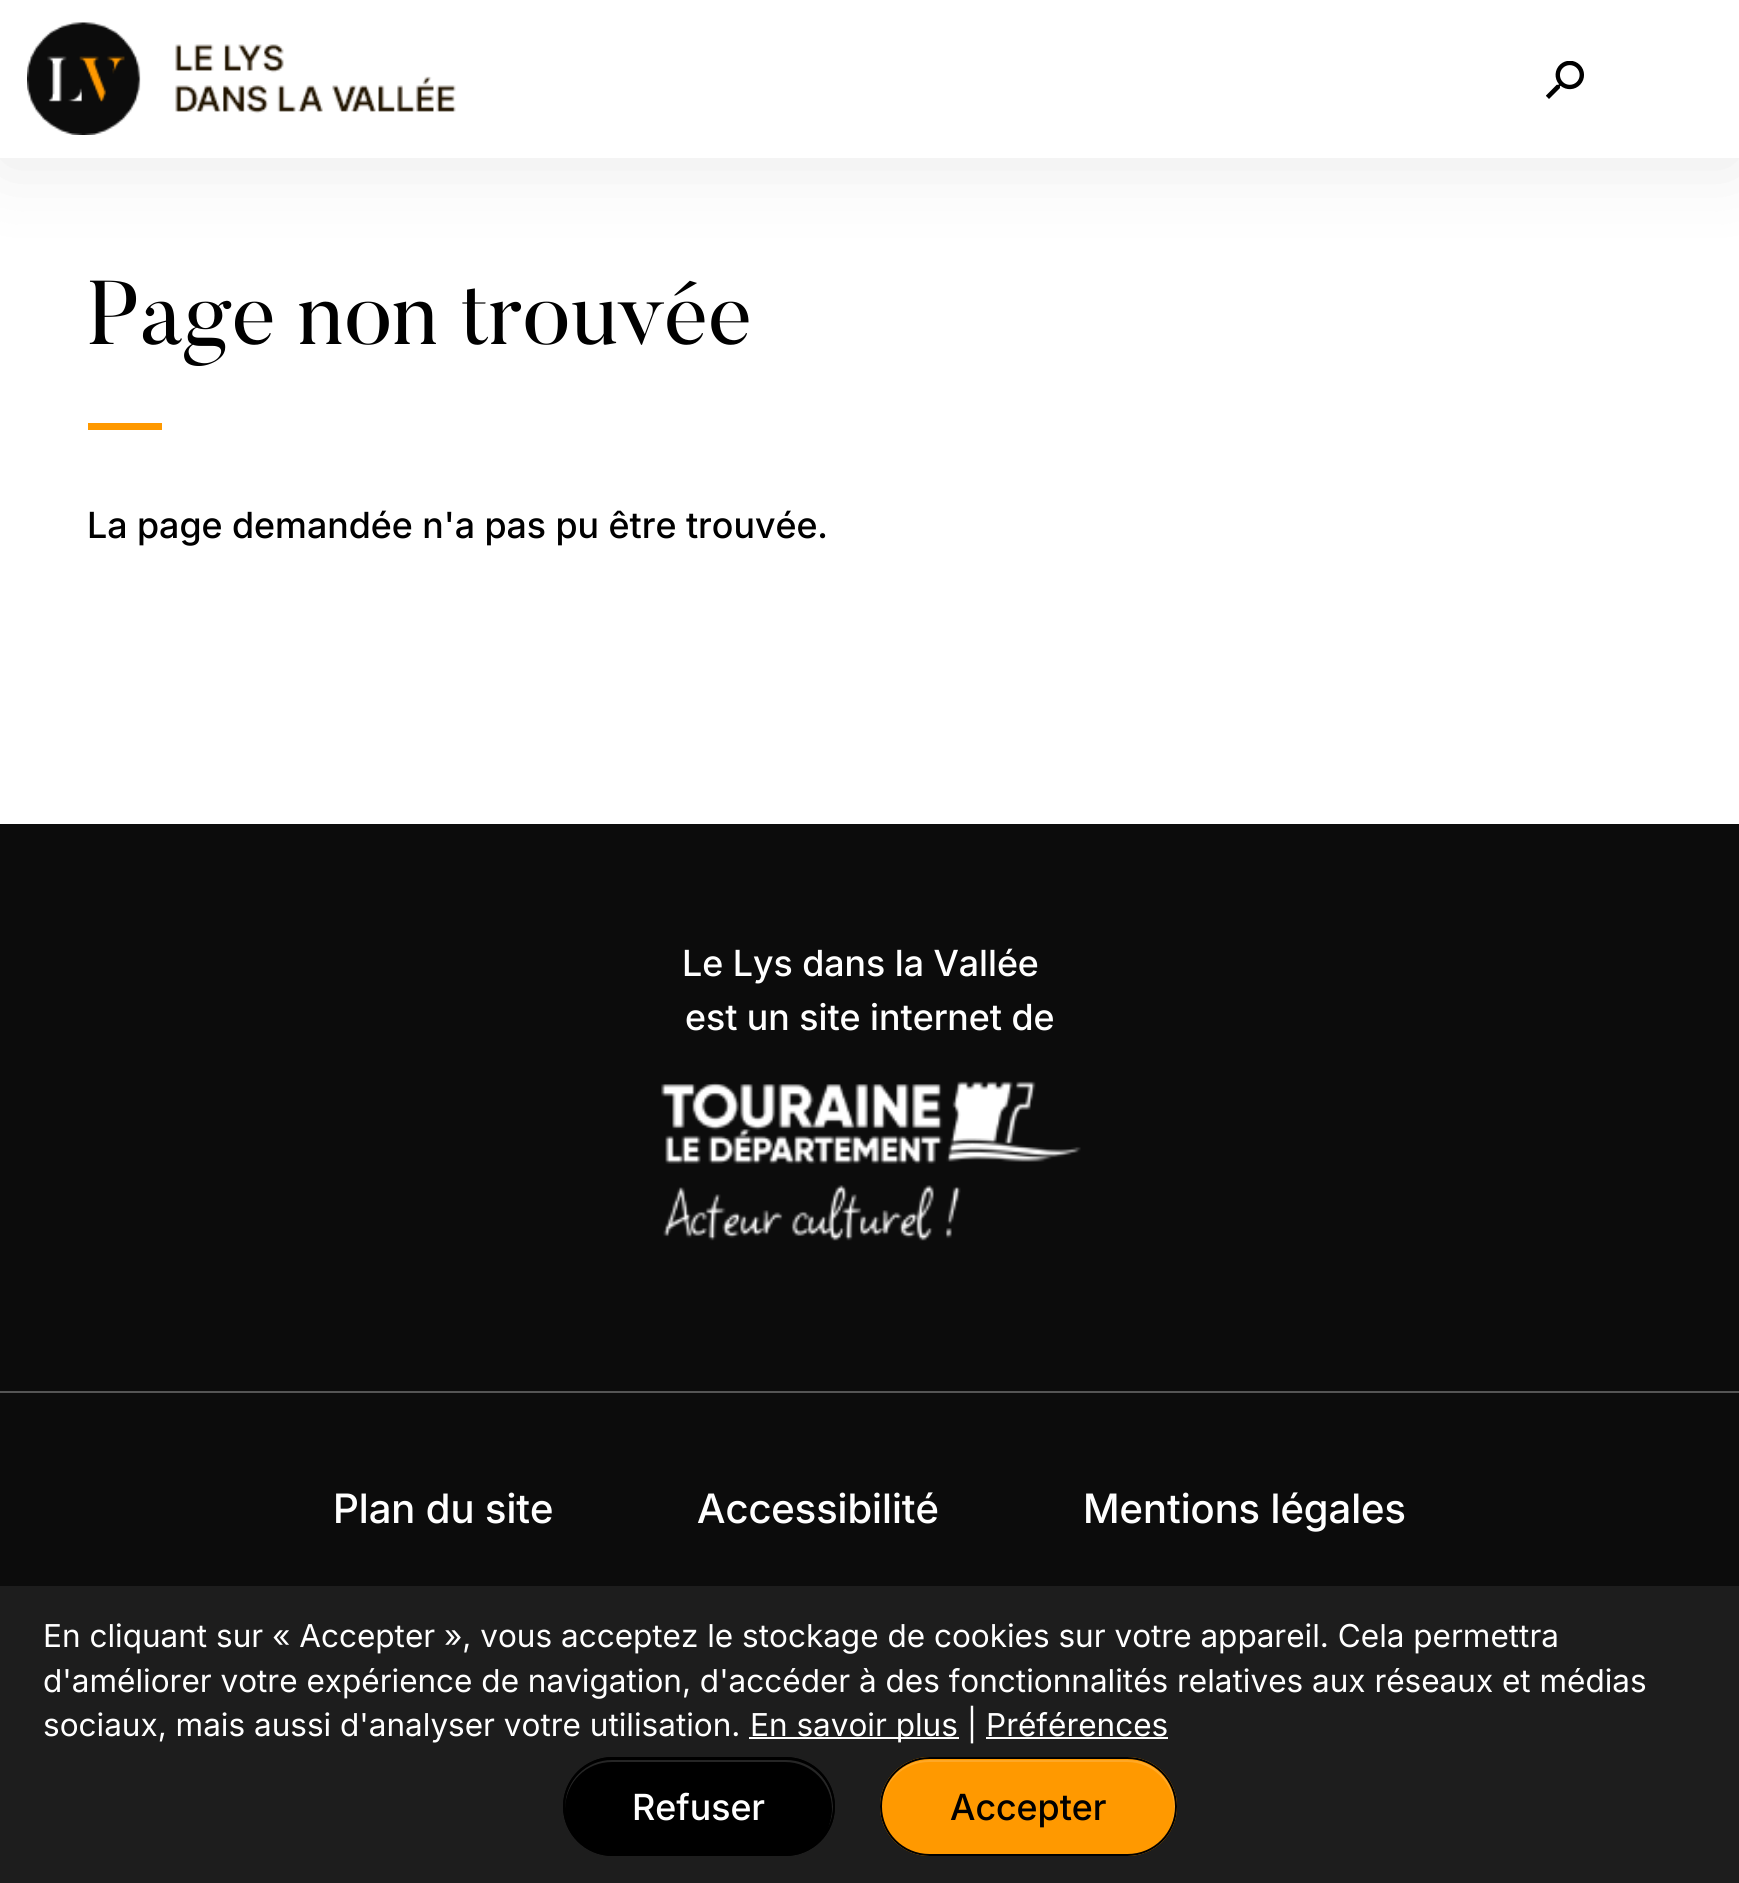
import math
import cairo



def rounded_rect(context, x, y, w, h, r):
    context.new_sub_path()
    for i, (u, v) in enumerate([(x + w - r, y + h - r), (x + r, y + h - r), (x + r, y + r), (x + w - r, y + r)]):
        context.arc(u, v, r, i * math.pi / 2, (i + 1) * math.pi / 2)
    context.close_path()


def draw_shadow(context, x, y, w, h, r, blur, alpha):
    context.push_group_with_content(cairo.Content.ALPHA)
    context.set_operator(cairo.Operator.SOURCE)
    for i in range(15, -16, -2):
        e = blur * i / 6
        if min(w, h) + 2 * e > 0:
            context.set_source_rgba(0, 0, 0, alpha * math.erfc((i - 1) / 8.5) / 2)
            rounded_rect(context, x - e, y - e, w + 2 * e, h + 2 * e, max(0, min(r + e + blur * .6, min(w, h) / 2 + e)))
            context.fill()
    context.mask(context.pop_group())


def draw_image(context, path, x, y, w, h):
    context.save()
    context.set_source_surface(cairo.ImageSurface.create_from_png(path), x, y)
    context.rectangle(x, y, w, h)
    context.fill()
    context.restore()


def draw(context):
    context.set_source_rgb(1, 1, 1)
    context.paint()
    context.save()
    context.set_fill_rule(cairo.FillRule.EVEN_ODD)
    context.new_path()
    context.move_to(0, 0)
    context.line_to(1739, 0)
    context.line_to(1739, 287)
    context.line_to(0, 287)
    context.close_path()
    context.move_to(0, 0)
    context.line_to(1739, 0)
    context.line_to(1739, 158)
    context.line_to(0, 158)
    context.close_path()
    context.clip()
    context.set_source_rgb(0, 0, 0)
    draw_shadow(context, 0, 7, 1739, 157, 0, 40.5, 0.09)
    context.restore()
    draw_image(context, "images/1.png", 27, 22, 429, 113)
    draw_image(context, "images/2.png", 1546, 61, 38, 38)
    context.set_source_rgb(1, 153 / 255, 0)
    context.rectangle(88, 423, 74, 7)
    context.fill()
    context.set_source_rgb(12 / 255, 12 / 255, 12 / 255)
    context.rectangle(0, 824, 1739, 762)
    context.fill()
    context.set_source_rgb(85 / 255, 85 / 255, 85 / 255)
    context.rectangle(0, 1391, 1739, 2)
    context.fill()
    draw_image(context, "images/3.png", 661, 1081, 420, 160)
    context.set_source_rgb(29 / 255, 29 / 255, 29 / 255)
    context.rectangle(0, 1586, 1739, 297)
    context.fill()
    context.set_source_rgb(1, 1, 1)
    context.rectangle(749, 1737, 210, 2)
    context.fill()
    context.rectangle(986, 1737, 182, 2)
    context.fill()
    context.set_source_rgb(0, 0, 0)
    rounded_rect(context, 563, 1757, 272, 99, 49.5)
    context.fill()
    context.set_source_rgb(38 / 255, 38 / 255, 38 / 255)
    context.new_path()
    context.move_to(612, 1762)
    context.line_to(785, 1762)
    context.curve_to(811, 1762, 832, 1783, 832, 1809)
    context.curve_to(832, 1816, 830, 1823, 828, 1829)
    context.curve_to(831, 1822, 833, 1815, 833, 1807)
    context.curve_to(833, 1781, 812, 1760, 786, 1760)
    context.line_to(612, 1760)
    context.curve_to(586, 1760, 565, 1781, 565, 1807)
    context.line_to(565, 1808)
    context.curve_to(566, 1782, 586, 1762, 612, 1762)
    context.close_path()
    context.fill()
    rounded_rect(context, 564, 1758, 270, 97, 48.5)
    context.set_source_rgb(0, 0, 0)
    context.stroke()
    context.set_source_rgb(1, 153 / 255, 0)
    rounded_rect(context, 880, 1757, 297, 99, 49.5)
    context.fill()
    context.set_source_rgb(1, 168 / 255, 38 / 255)
    context.new_path()
    context.move_to(929, 1762)
    context.line_to(1127, 1762)
    context.curve_to(1153, 1762, 1174, 1783, 1174, 1809)
    context.curve_to(1174, 1816, 1172, 1823, 1170, 1829)
    context.curve_to(1173, 1822, 1175, 1815, 1175, 1807)
    context.curve_to(1175, 1781, 1154, 1760, 1128, 1760)
    context.line_to(929, 1760)
    context.curve_to(903, 1760, 882, 1781, 882, 1807)
    context.line_to(882, 1808)
    context.curve_to(883, 1782, 903, 1762, 929, 1762)
    context.close_path()
    context.fill()
    rounded_rect(context, 881, 1758, 295, 97, 48.5)
    context.set_source_rgb(0, 0, 0)
    context.stroke()
    context.select_font_face("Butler")
    context.set_font_size(90)
    context.move_to(87, 344)
    context.show_text("Page non trouvée")
    context.select_font_face("Inter Medium")
    context.set_font_size(36)
    context.move_to(87, 538)
    context.show_text("La page demandée n'a pas pu être trouvée.")
    context.set_source_rgb(1, 1, 1)
    context.move_to(682, 976)
    context.show_text("Le Lys dans la Vallée")
    context.move_to(685, 1030)
    context.show_text("est un site internet de")
    context.select_font_face("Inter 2 Medium")
    context.set_font_size(40.5)
    context.move_to(333, 1523)
    context.show_text("Plan du site")
    context.move_to(697, 1523)
    context.show_text("Accessibilité")
    context.move_to(1083, 1523)
    context.show_text("Mentions légales")
    context.select_font_face("Inter")
    context.set_font_size(31.5)
    context.move_to(43, 1647)
    context.show_text("En cliquant sur « Accepter », vous acceptez le stockage de cookies sur votre appareil. Cela permettra")
    context.move_to(43, 1692)
    context.show_text("d'améliorer votre expérience de navigation, d'accéder à des fonctionnalités relatives aux réseaux et médias")
    context.move_to(43, 1736)
    context.show_text("sociaux, mais aussi d'analyser votre utilisation.")
    context.move_to(750, 1736)
    context.show_text("En savoir plus | Préférences")
    context.select_font_face("Inter Medium")
    context.set_font_size(36)
    context.move_to(632, 1820)
    context.show_text("Refuser")
    context.set_source_rgb(0, 0, 0)
    context.move_to(950, 1820)
    context.show_text("Accepter")


surface = cairo.ImageSurface(cairo.Format.RGB24, 1739, 1883)
context = cairo.Context(surface)
options = cairo.FontOptions()
options.set_hint_metrics(cairo.HintMetrics.OFF)
options.set_hint_style(cairo.HintStyle.NONE)
context.set_font_options(options)
context.set_miter_limit(4)
draw(context)
surface.write_to_png("out.png")
